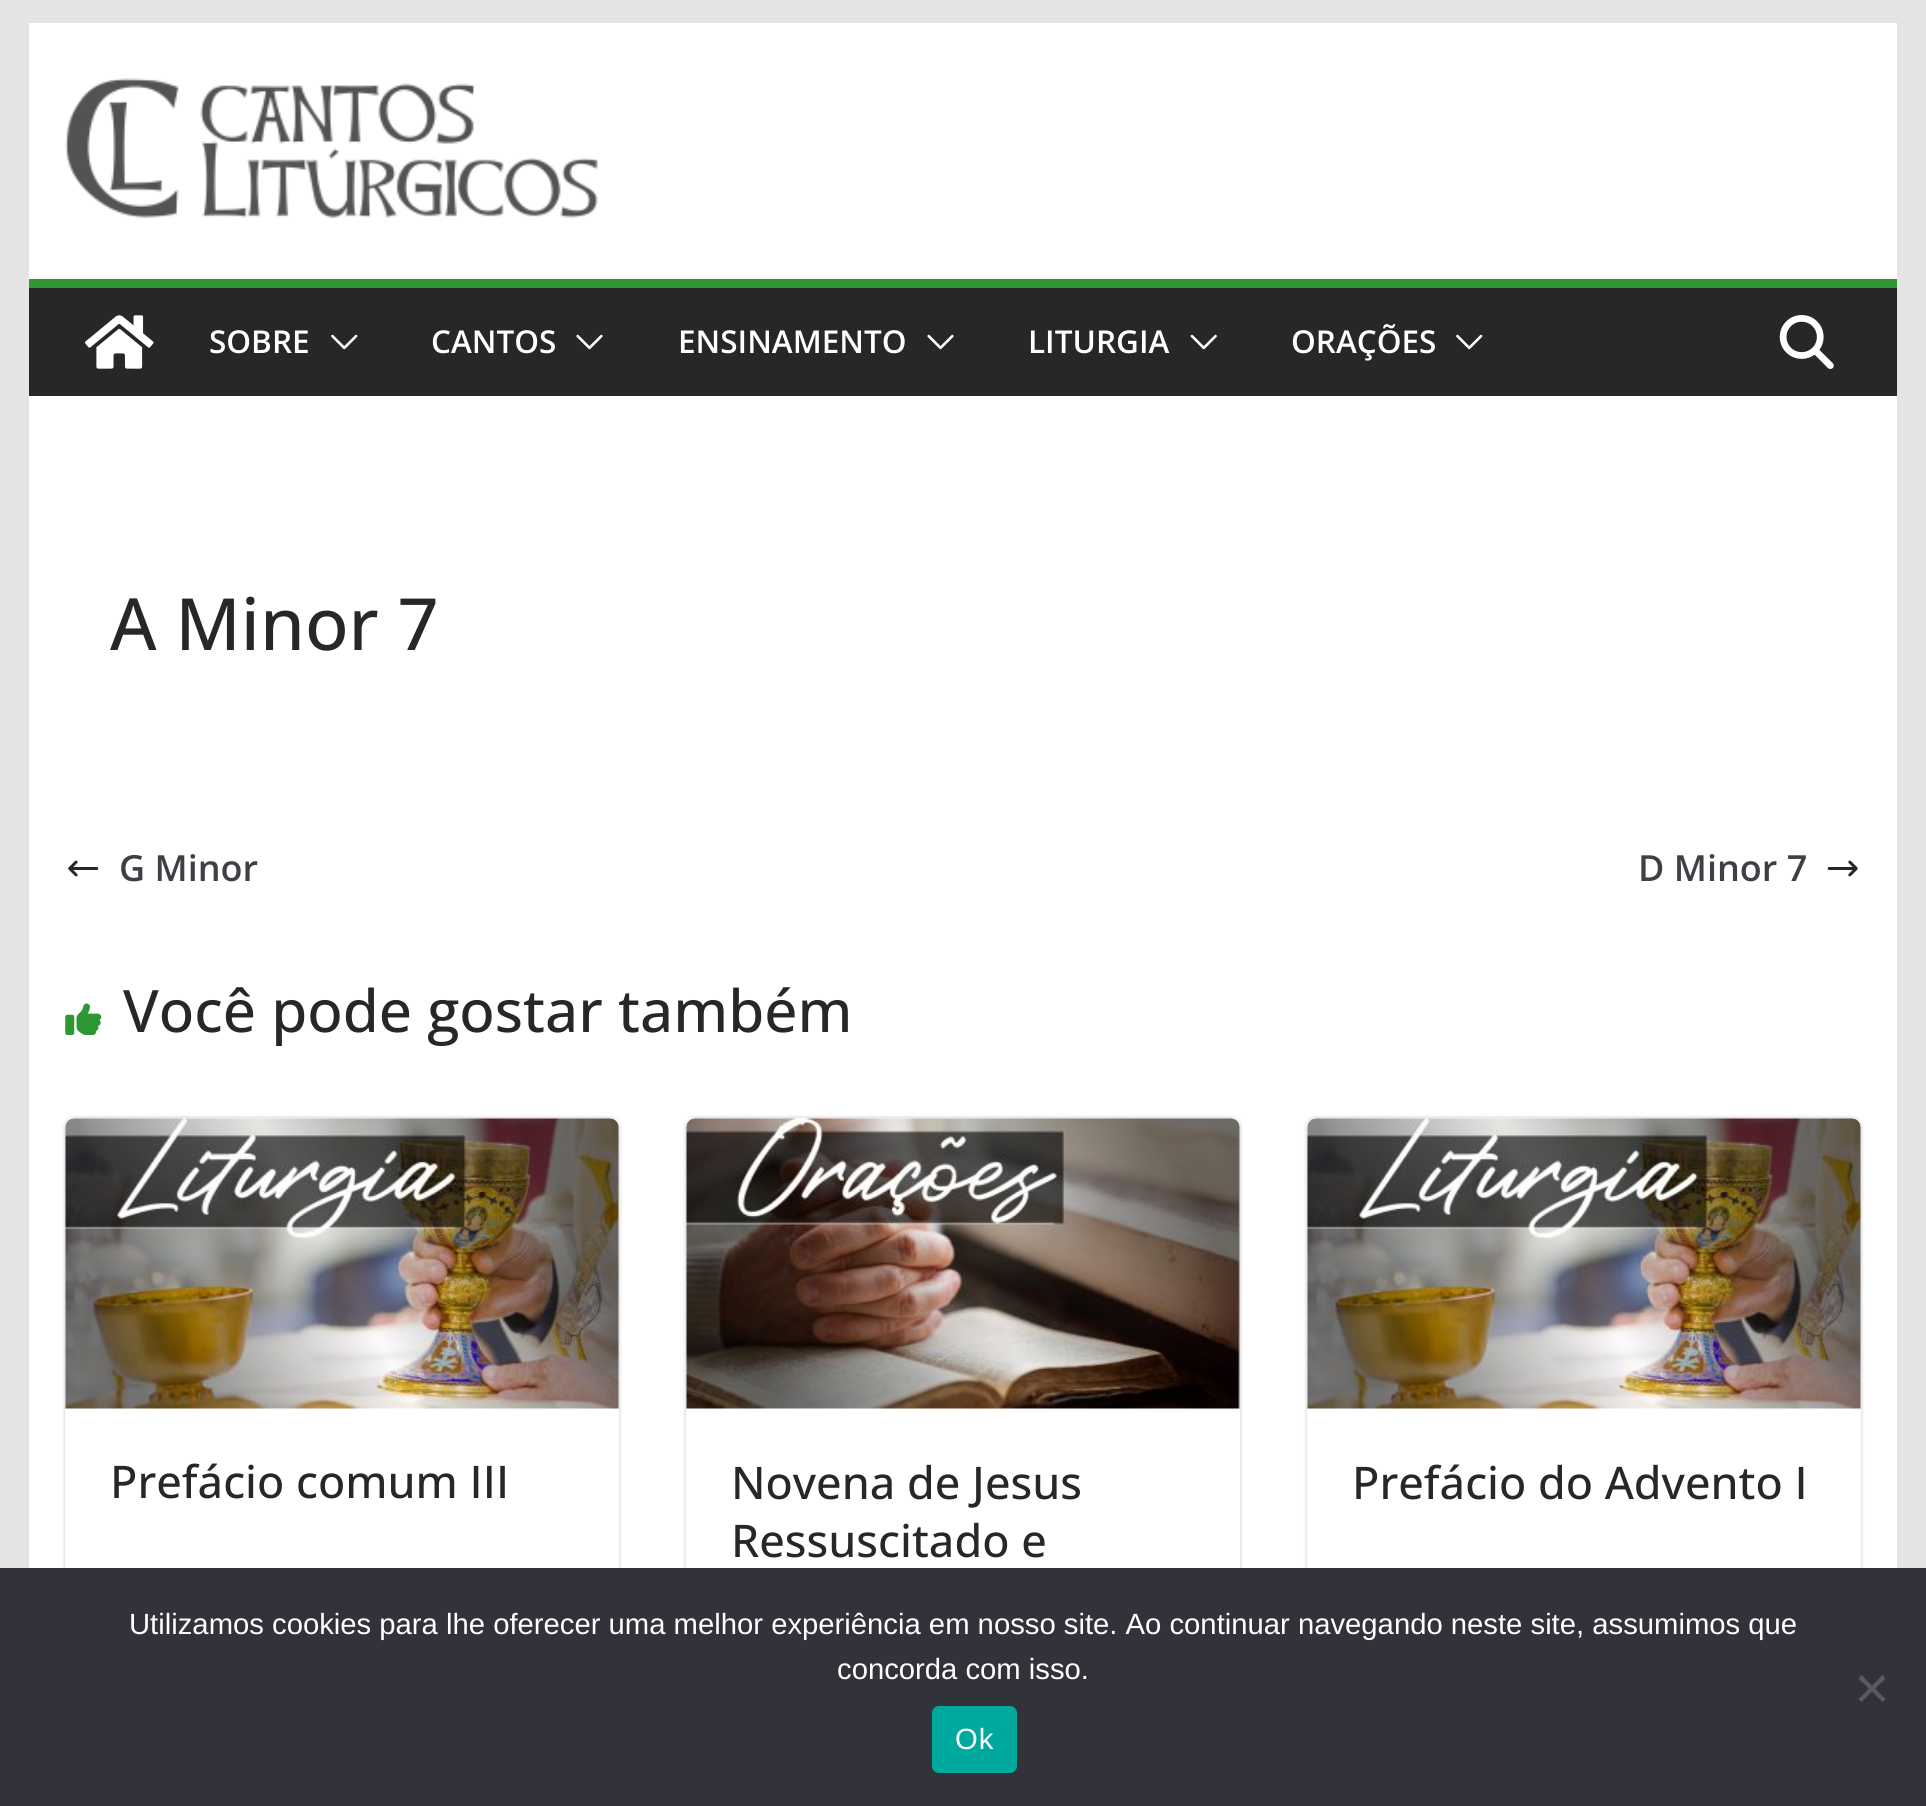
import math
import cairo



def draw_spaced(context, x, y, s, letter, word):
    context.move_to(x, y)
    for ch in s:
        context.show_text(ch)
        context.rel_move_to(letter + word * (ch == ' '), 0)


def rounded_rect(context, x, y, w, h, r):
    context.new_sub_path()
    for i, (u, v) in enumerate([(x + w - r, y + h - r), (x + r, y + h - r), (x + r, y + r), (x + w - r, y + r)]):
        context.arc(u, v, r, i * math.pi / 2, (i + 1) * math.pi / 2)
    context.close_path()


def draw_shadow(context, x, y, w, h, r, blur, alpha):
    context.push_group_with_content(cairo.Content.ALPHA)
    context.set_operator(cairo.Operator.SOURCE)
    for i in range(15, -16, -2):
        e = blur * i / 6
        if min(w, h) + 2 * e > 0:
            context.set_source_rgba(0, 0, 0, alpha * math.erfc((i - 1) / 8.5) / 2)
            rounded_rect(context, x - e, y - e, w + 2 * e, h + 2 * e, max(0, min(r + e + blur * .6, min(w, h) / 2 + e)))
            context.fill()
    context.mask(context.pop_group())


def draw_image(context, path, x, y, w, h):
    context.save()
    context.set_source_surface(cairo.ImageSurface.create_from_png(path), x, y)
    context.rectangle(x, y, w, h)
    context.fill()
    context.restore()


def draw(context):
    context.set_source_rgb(228 / 255, 228 / 255, 231 / 255)
    context.paint()
    context.set_source_rgb(1, 1, 1)
    context.rectangle(29, 23, 1868, 256)
    context.fill()
    draw_image(context, "images/1.png", 65, 78, 533, 141)
    context.set_source_rgb(39 / 255, 39 / 255, 42 / 255)
    context.rectangle(29, 288, 1868, 108)
    context.fill()
    context.set_source_rgb(46 / 255, 150 / 255, 51 / 255)
    context.rectangle(29, 279, 1868, 9)
    context.fill()
    draw_image(context, "images/2.png", 85, 315, 69, 54)
    draw_image(context, "images/3.png", 331, 334, 27, 16)
    draw_image(context, "images/4.png", 576, 334, 27, 16)
    draw_image(context, "images/4.png", 927, 334, 27, 16)
    draw_image(context, "images/5.png", 1190, 334, 27, 16)
    draw_image(context, "images/3.png", 1456, 334, 27, 16)
    draw_image(context, "images/6.png", 1779, 315, 55, 54)
    context.set_source_rgb(1, 1, 1)
    context.rectangle(29, 396, 1868, 1172)
    context.fill()
    draw_image(context, "images/7.png", 68, 860, 31, 17)
    draw_image(context, "images/8.png", 1827, 860, 31, 17)
    draw_image(context, "images/9.png", 65, 1003, 37, 32)
    context.save()
    context.set_fill_rule(cairo.FillRule.EVEN_ODD)
    context.new_path()
    context.move_to(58, 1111)
    context.line_to(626, 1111)
    context.line_to(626, 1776)
    context.line_to(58, 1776)
    context.close_path()
    context.move_to(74, 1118)
    context.line_to(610, 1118)
    context.curve_to(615, 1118, 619, 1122, 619, 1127)
    context.line_to(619, 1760)
    context.curve_to(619, 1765, 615, 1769, 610, 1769)
    context.line_to(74, 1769)
    context.curve_to(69, 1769, 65, 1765, 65, 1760)
    context.line_to(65, 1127)
    context.curve_to(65, 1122, 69, 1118, 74, 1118)
    context.close_path()
    context.clip()
    context.set_source_rgb(0, 0, 0)
    draw_shadow(context, 65, 1118, 554, 651, 9, 2, 0.24)
    context.restore()
    draw_image(context, "images/10.png", 65, 1118, 554, 291)
    context.save()
    context.set_fill_rule(cairo.FillRule.EVEN_ODD)
    context.new_path()
    context.move_to(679, 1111)
    context.line_to(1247, 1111)
    context.line_to(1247, 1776)
    context.line_to(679, 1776)
    context.close_path()
    context.move_to(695, 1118)
    context.line_to(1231, 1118)
    context.curve_to(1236, 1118, 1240, 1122, 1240, 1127)
    context.line_to(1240, 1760)
    context.curve_to(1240, 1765, 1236, 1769, 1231, 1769)
    context.line_to(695, 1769)
    context.curve_to(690, 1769, 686, 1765, 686, 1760)
    context.line_to(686, 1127)
    context.curve_to(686, 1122, 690, 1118, 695, 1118)
    context.close_path()
    context.clip()
    context.set_source_rgb(0, 0, 0)
    draw_shadow(context, 686, 1118, 554, 651, 9, 2, 0.24)
    context.restore()
    draw_image(context, "images/11.png", 686, 1118, 554, 291)
    context.save()
    context.set_fill_rule(cairo.FillRule.EVEN_ODD)
    context.new_path()
    context.move_to(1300, 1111)
    context.line_to(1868, 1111)
    context.line_to(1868, 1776)
    context.line_to(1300, 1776)
    context.close_path()
    context.move_to(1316, 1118)
    context.line_to(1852, 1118)
    context.curve_to(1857, 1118, 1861, 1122, 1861, 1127)
    context.line_to(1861, 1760)
    context.curve_to(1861, 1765, 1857, 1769, 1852, 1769)
    context.line_to(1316, 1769)
    context.curve_to(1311, 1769, 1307, 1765, 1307, 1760)
    context.line_to(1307, 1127)
    context.curve_to(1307, 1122, 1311, 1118, 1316, 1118)
    context.close_path()
    context.clip()
    context.set_source_rgb(0, 0, 0)
    draw_shadow(context, 1307, 1118, 554, 651, 9, 2, 0.24)
    context.restore()
    draw_image(context, "images/10.png", 1307, 1118, 554, 291)
    context.set_source_rgb(50 / 255, 50 / 255, 58 / 255)
    context.rectangle(0, 1568, 1926, 238)
    context.fill()
    context.set_source_rgb(89 / 255, 89 / 255, 93 / 255)
    context.new_path()
    context.move_to(1882.5, 1675)
    context.line_to(1885.5, 1678.5)
    context.line_to(1861.5, 1702)
    context.line_to(1858.5, 1699)
    context.close_path()
    context.fill()
    context.new_path()
    context.move_to(1858.5, 1678.5)
    context.line_to(1861.5, 1675)
    context.line_to(1885.5, 1699)
    context.line_to(1882.5, 1702)
    context.close_path()
    context.fill()
    context.set_source_rgb(0, 169 / 255, 157 / 255)
    rounded_rect(context, 932, 1706, 85, 67, 7)
    context.fill()
    context.select_font_face("Open Sans SemiBold")
    context.set_font_size(31.5)
    context.set_source_rgb(1, 1, 1)
    context.move_to(209, 353)
    context.show_text("SOBRE")
    context.move_to(431, 353)
    context.show_text("CANTOS")
    context.move_to(678, 353)
    context.show_text("ENSINAMENTO")
    context.move_to(1028, 353)
    context.show_text("LITURGIA")
    context.move_to(1291, 353)
    context.show_text("ORAÇÕES")
    context.select_font_face("Open Sans Medium")
    context.set_font_size(72)
    context.set_source_rgb(39 / 255, 39 / 255, 42 / 255)
    context.move_to(110, 650)
    context.show_text("A Minor 7")
    context.select_font_face("Open Sans SemiBold")
    context.set_font_size(36)
    context.set_source_rgb(63 / 255, 63 / 255, 70 / 255)
    context.move_to(119, 881)
    context.show_text("G Minor")
    context.move_to(1638, 881)
    context.show_text("D Minor 7")
    context.select_font_face("Open Sans Medium")
    context.set_font_size(58.5)
    context.set_source_rgb(39 / 255, 39 / 255, 42 / 255)
    context.move_to(123, 1032)
    context.show_text("Você pode gostar também")
    context.set_font_size(45)
    context.move_to(110, 1498)
    context.show_text("Prefácio comum III")
    context.move_to(731, 1499)
    context.show_text("Novena de Jesus")
    context.move_to(731, 1557)
    context.show_text("Ressuscitado e")
    context.move_to(1352, 1499)
    context.show_text("Prefácio do Advento I")
    context.select_font_face("Liberation Sans")
    context.set_font_size(29.25)
    context.set_source_rgb(1, 1, 1)
    context.move_to(129, 1634)
    context.show_text("Utilizamos cookies para lhe oferecer uma melhor experiência em nosso site. Ao continuar navegando neste site, assumimos que")
    context.move_to(837, 1679)
    context.show_text("concorda com isso.")
    draw_spaced(context, 955, 1749, "Ok", 1, 0)


surface = cairo.ImageSurface(cairo.Format.RGB24, 1926, 1806)
context = cairo.Context(surface)
options = cairo.FontOptions()
options.set_hint_metrics(cairo.HintMetrics.OFF)
options.set_hint_style(cairo.HintStyle.NONE)
context.set_font_options(options)
context.set_miter_limit(4)
draw(context)
surface.write_to_png("out.png")
